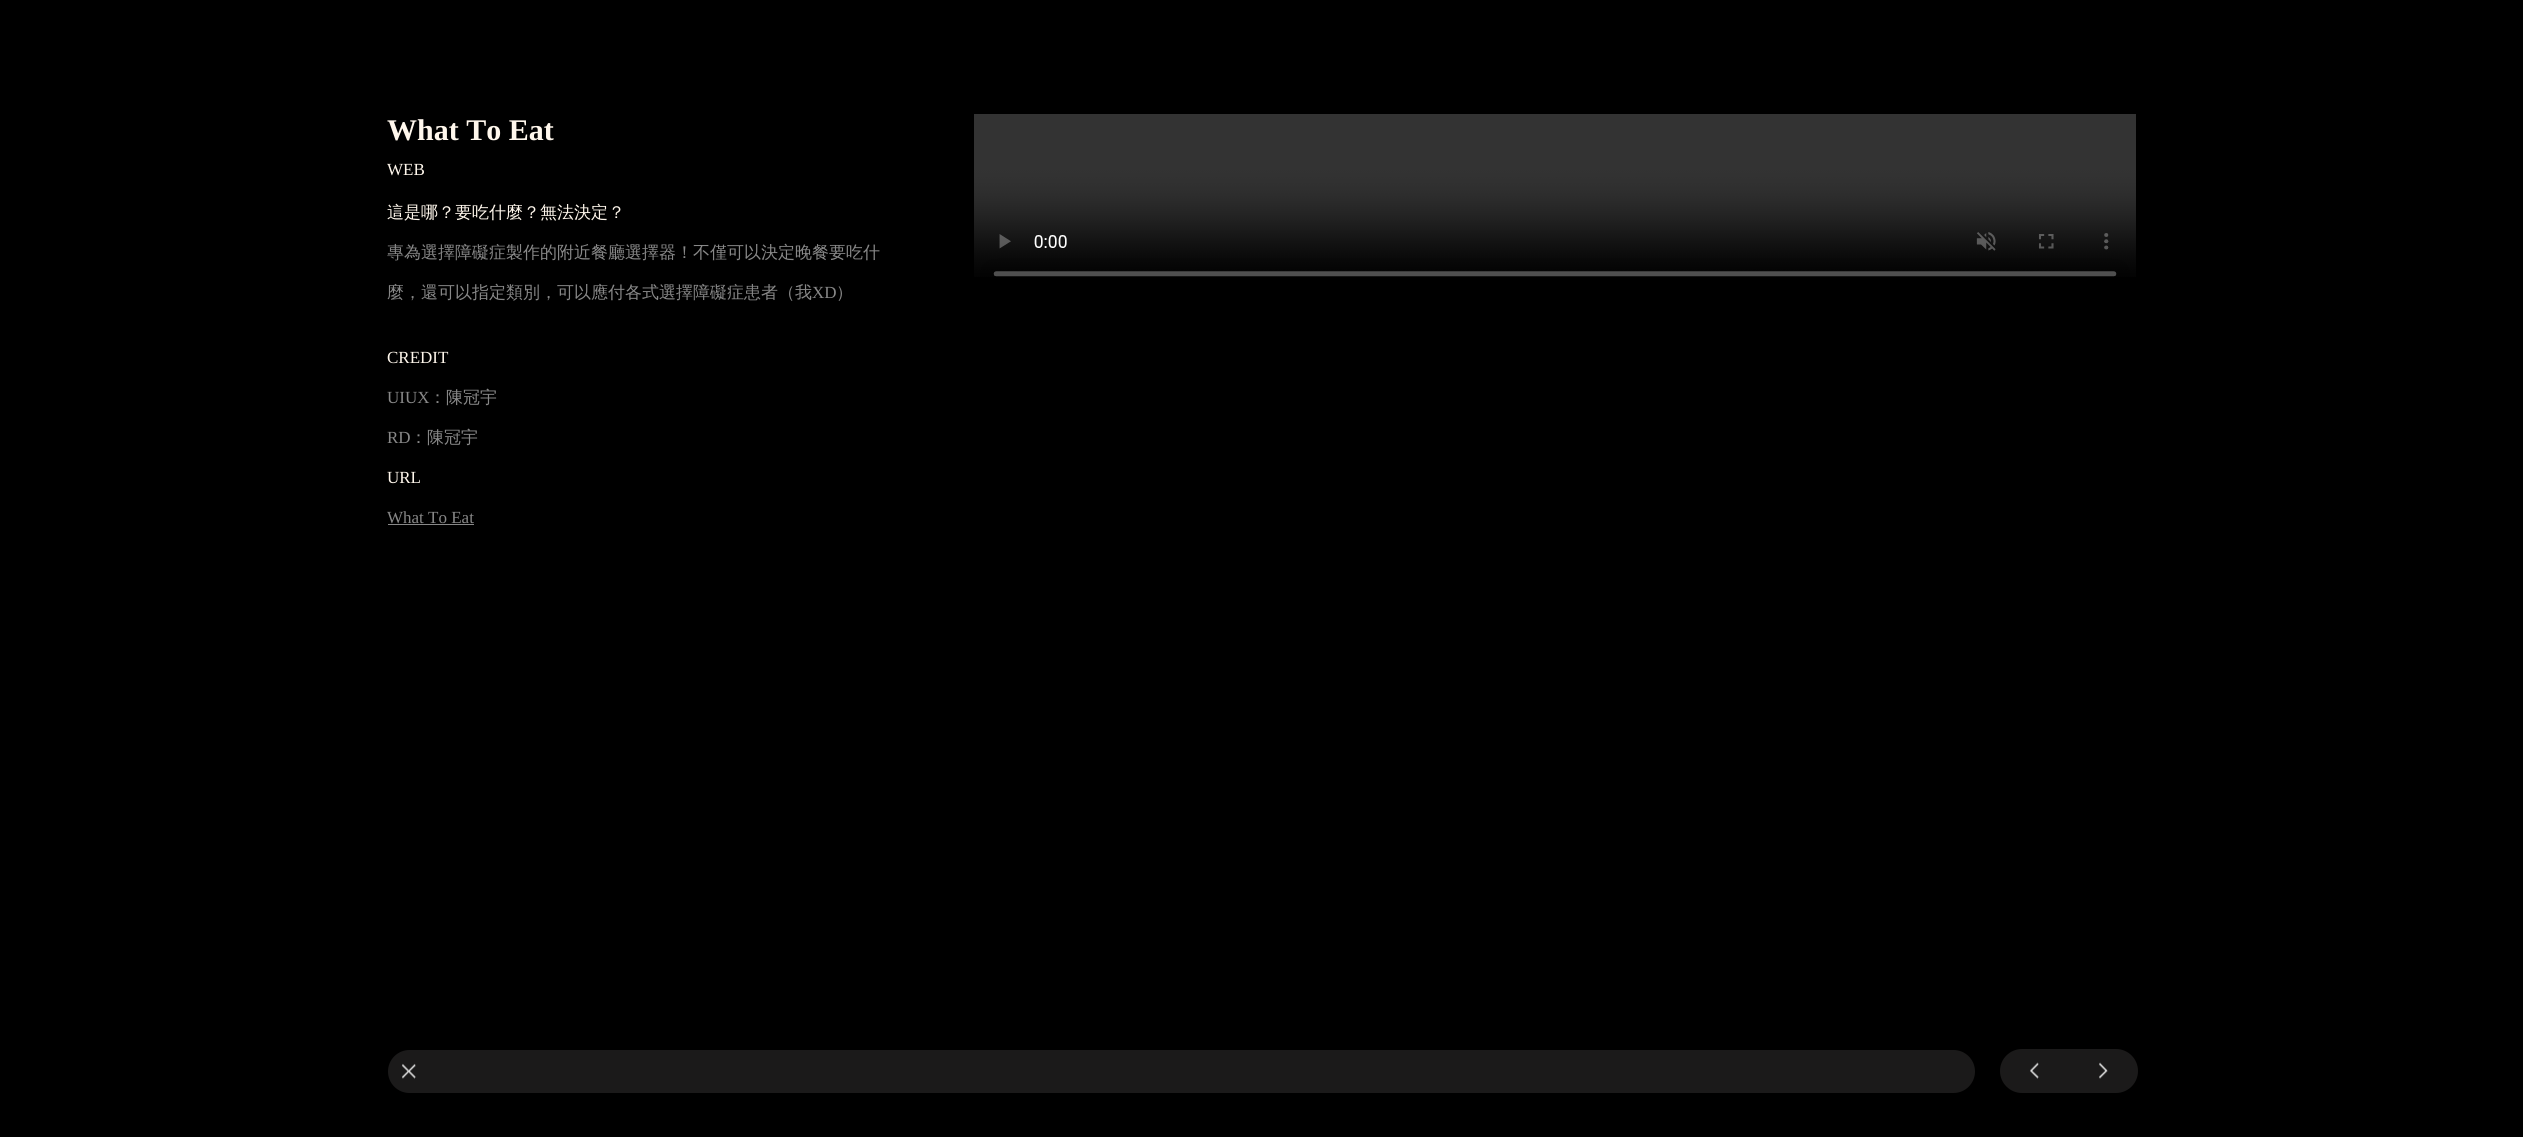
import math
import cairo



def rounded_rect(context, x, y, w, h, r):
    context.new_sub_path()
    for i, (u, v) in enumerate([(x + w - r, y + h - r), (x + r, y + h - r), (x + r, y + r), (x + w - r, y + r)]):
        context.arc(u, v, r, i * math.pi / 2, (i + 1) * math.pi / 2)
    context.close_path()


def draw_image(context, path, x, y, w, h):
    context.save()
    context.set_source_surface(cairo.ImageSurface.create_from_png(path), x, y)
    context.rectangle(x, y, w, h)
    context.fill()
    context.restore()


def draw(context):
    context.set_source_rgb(0, 0, 0)
    context.paint()
    context.set_source_rgb(136 / 255, 136 / 255, 136 / 255)
    context.rectangle(388, 524, 86, 1)
    context.fill()
    context.set_source_rgb(27 / 255, 26 / 255, 26 / 255)
    rounded_rect(context, 388, 1050, 1587, 43, 21.5)
    context.fill()
    draw_image(context, "images/1.png", 402, 1063, 14, 16)
    rounded_rect(context, 2000, 1049, 138, 44, 22)
    context.fill()
    draw_image(context, "images/2.png", 2030, 1062, 9, 17)
    draw_image(context, "images/3.png", 2099, 1062, 9, 17)
    draw_image(context, "images/4.png", 974, 114, 1162, 163)
    context.select_font_face("Liberation Serif", cairo.FontSlant.NORMAL, cairo.FontWeight.BOLD)
    context.set_font_size(30)
    context.set_source_rgb(1, 247 / 255, 236 / 255)
    context.move_to(387, 140)
    context.show_text("What To Eat")
    context.select_font_face("Liberation Serif")
    context.set_font_size(17)
    context.move_to(387, 175)
    context.show_text("WEB")
    context.select_font_face("WenQuanYi Zen Hei Medium")
    context.move_to(387, 218)
    context.show_text("這是哪？要吃什麼？無法決定？")
    context.set_source_rgb(136 / 255, 136 / 255, 136 / 255)
    context.move_to(387, 258)
    context.show_text("專為選擇障礙症製作的附近餐廳選擇器！不僅可以決定晚餐要吃什")
    context.move_to(387, 298)
    context.show_text("麼，還可以指定類別，可以應付各式選擇障礙症患者（我")
    context.select_font_face("Liberation Serif")
    context.move_to(812, 298)
    context.show_text("XD")
    context.select_font_face("WenQuanYi Zen Hei Medium")
    context.move_to(836, 298)
    context.show_text("）")
    context.select_font_face("Liberation Serif")
    context.set_source_rgb(1, 247 / 255, 236 / 255)
    context.move_to(387, 363)
    context.show_text("CREDIT")
    context.set_source_rgb(136 / 255, 136 / 255, 136 / 255)
    context.move_to(387, 403)
    context.show_text("UIUX")
    context.select_font_face("WenQuanYi Zen Hei Medium")
    context.move_to(429, 403)
    context.show_text("：陳冠宇")
    context.select_font_face("Liberation Serif")
    context.move_to(387, 443)
    context.show_text("RD")
    context.select_font_face("WenQuanYi Zen Hei Medium")
    context.move_to(410, 443)
    context.show_text("：陳冠宇")
    context.select_font_face("Liberation Serif")
    context.set_source_rgb(1, 247 / 255, 236 / 255)
    context.move_to(387, 483)
    context.show_text("URL")
    context.set_source_rgb(136 / 255, 136 / 255, 136 / 255)
    context.move_to(387, 523)
    context.show_text("What To Eat")


surface = cairo.ImageSurface(cairo.Format.RGB24, 2523, 1137)
context = cairo.Context(surface)
options = cairo.FontOptions()
options.set_hint_metrics(cairo.HintMetrics.OFF)
options.set_hint_style(cairo.HintStyle.NONE)
context.set_font_options(options)
context.set_miter_limit(4)
draw(context)
surface.write_to_png("out.png")
